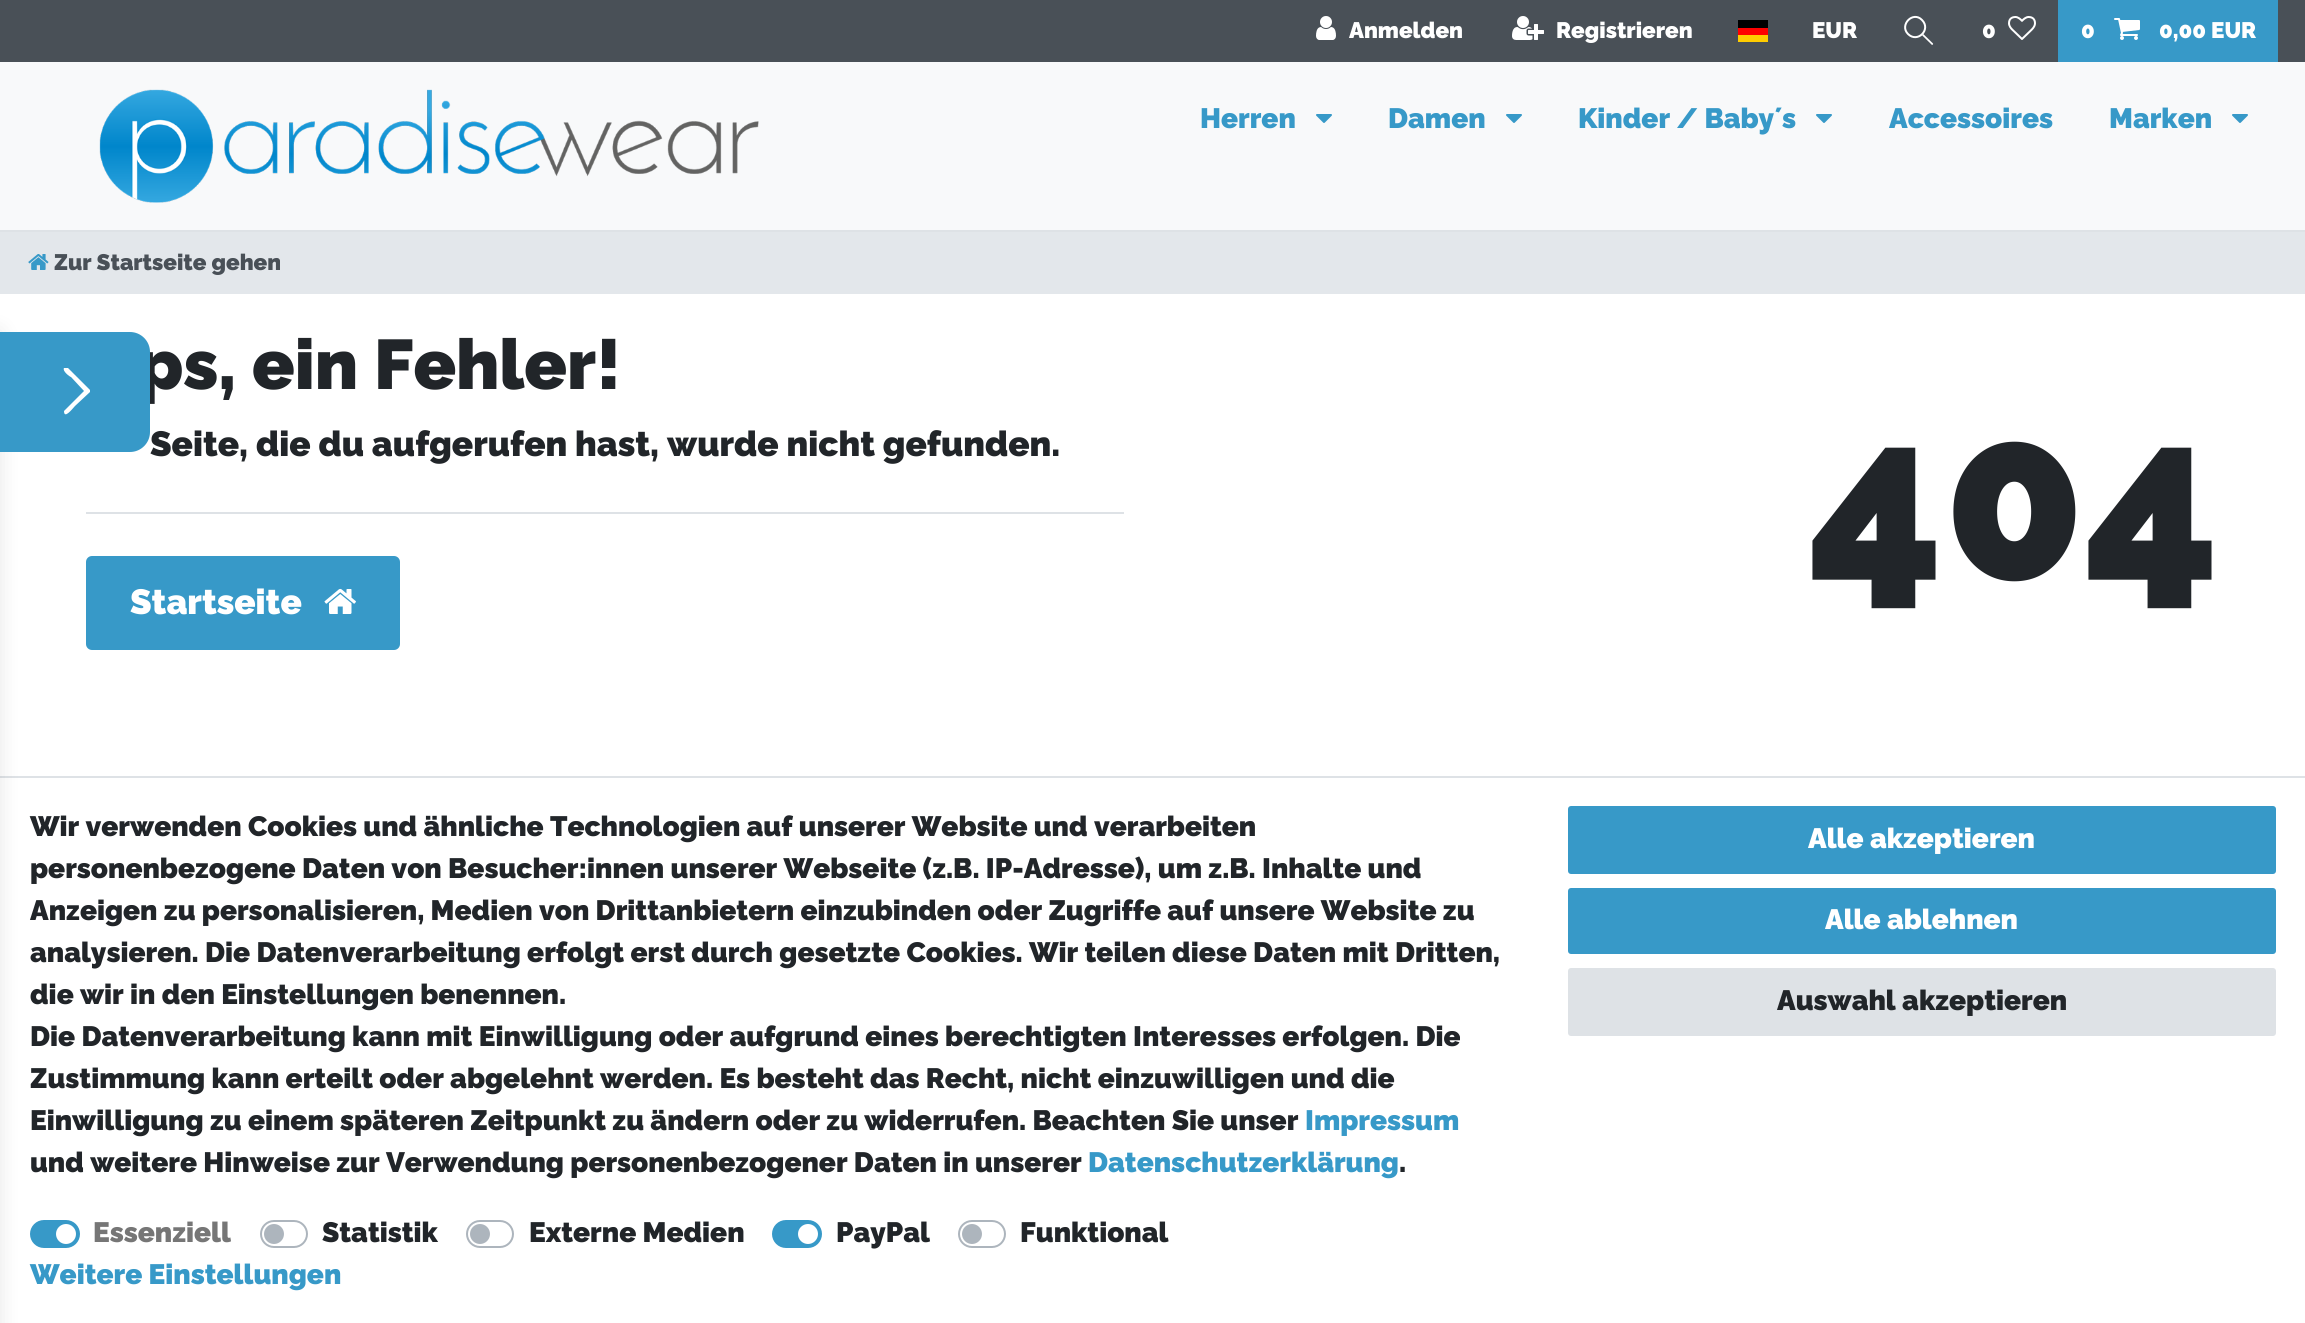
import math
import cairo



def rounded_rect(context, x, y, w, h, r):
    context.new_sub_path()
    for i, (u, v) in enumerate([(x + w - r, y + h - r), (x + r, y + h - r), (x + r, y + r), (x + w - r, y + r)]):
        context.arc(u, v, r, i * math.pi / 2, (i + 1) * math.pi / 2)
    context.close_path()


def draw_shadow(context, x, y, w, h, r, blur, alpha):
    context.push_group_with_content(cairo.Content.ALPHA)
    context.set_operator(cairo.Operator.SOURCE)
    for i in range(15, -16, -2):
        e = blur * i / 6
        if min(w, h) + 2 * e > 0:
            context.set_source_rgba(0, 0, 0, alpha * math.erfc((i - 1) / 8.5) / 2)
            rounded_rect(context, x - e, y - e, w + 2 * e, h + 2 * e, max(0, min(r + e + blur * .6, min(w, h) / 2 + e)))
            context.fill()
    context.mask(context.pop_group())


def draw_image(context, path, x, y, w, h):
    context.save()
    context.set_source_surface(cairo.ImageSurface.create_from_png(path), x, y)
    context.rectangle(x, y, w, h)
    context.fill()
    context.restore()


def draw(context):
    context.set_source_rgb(1, 1, 1)
    context.paint()
    context.set_source_rgb(73 / 255, 80 / 255, 87 / 255)
    context.rectangle(0, 0, 2305, 62)
    context.fill()
    draw_image(context, "images/1.png", 1316, 16, 20, 24)
    draw_image(context, "images/2.png", 1512, 16, 32, 24)
    context.set_source_rgb(1, 204 / 255, 0)
    context.rectangle(1738, 35, 30, 7)
    context.fill()
    context.set_source_rgb(0, 0, 0)
    context.rectangle(1738, 20, 30, 8)
    context.fill()
    context.set_source_rgb(1, 0, 0)
    context.rectangle(1738, 28, 30, 7)
    context.fill()
    context.set_source_rgb(1, 1, 1)
    context.new_path()
    context.move_to(1931.5, 44.5)
    context.line_to(1911.5, 25)
    context.line_to(1911.5, 24)
    context.curve_to(1911.5, 23.5, 1912, 23, 1912.5, 23.5)
    context.line_to(1933, 43.5)
    context.curve_to(1933.5, 44.5, 1932, 45.5, 1931.5, 44.5)
    context.close_path()
    context.fill()
    context.set_source_rgb(73 / 255, 80 / 255, 87 / 255)
    context.new_path()
    context.move_to(1907.5, 35)
    context.curve_to(1897, 24.5, 1912.5, 9, 1923, 19.5)
    context.curve_to(1933, 29.5, 1917.5, 45, 1907.5, 35)
    context.close_path()
    context.fill()
    context.new_path()
    context.move_to(1908, 34)
    context.curve_to(1899, 25, 1913, 10.5, 1922, 20)
    context.curve_to(1931.5, 29.5, 1917.5, 43.5, 1908, 34)
    context.close_path()
    context.set_source_rgb(1, 1, 1)
    context.stroke()
    draw_image(context, "images/3.png", 2008, 16, 28, 24)
    context.set_source_rgb(55 / 255, 153 / 255, 200 / 255)
    context.rectangle(2058, 0, 220, 62)
    context.fill()
    draw_image(context, "images/4.png", 2114, 18, 26, 22)
    context.set_source_rgb(248 / 255, 249 / 255, 250 / 255)
    context.rectangle(0, 62, 2305, 168)
    context.fill()
    context.set_source_rgb(222 / 255, 226 / 255, 230 / 255)
    context.rectangle(0, 230, 2305, 2)
    context.fill()
    draw_image(context, "images/5.png", 99, 89, 660, 114)
    draw_image(context, "images/6.png", 1316, 114, 16, 9)
    draw_image(context, "images/6.png", 1506, 114, 16, 9)
    draw_image(context, "images/6.png", 1816, 114, 16, 9)
    draw_image(context, "images/6.png", 2232, 114, 16, 9)
    context.set_source_rgb(227 / 255, 231 / 255, 235 / 255)
    context.rectangle(0, 232, 2305, 62)
    context.fill()
    draw_image(context, "images/7.png", 28, 254, 21, 16)
    context.set_source_rgb(222 / 255, 226 / 255, 230 / 255)
    context.rectangle(86, 512, 1038, 2)
    context.fill()
    context.set_source_rgb(55 / 255, 153 / 255, 200 / 255)
    rounded_rect(context, 87, 557, 312, 92, 5)
    context.fill_preserve()
    context.stroke()
    draw_image(context, "images/8.png", 324, 588, 32, 26)
    context.set_source_rgb(222 / 255, 226 / 255, 230 / 255)
    context.rectangle(0, 776, 2305, 2)
    context.fill()
    context.set_source_rgb(55 / 255, 153 / 255, 200 / 255)
    rounded_rect(context, 31, 1221, 48, 26, 13)
    context.fill_preserve()
    context.stroke()
    context.set_source_rgb(1, 1, 1)
    context.arc(66, 1234, 10, 0, 2 * math.pi)
    context.fill()
    rounded_rect(context, 261, 1221, 46, 26, 13)
    context.set_source_rgb(173 / 255, 181 / 255, 189 / 255)
    context.stroke()
    context.arc(274, 1234, 10, 0, 2 * math.pi)
    context.fill()
    rounded_rect(context, 467, 1221, 46, 26, 13)
    context.stroke()
    context.arc(480, 1234, 10, 0, 2 * math.pi)
    context.fill()
    context.set_source_rgb(55 / 255, 153 / 255, 200 / 255)
    rounded_rect(context, 773, 1221, 48, 26, 13)
    context.fill_preserve()
    context.stroke()
    context.set_source_rgb(1, 1, 1)
    context.arc(808, 1234, 10, 0, 2 * math.pi)
    context.fill()
    rounded_rect(context, 959, 1221, 46, 26, 13)
    context.set_source_rgb(173 / 255, 181 / 255, 189 / 255)
    context.stroke()
    context.arc(972, 1234, 10, 0, 2 * math.pi)
    context.fill()
    context.set_source_rgb(55 / 255, 153 / 255, 200 / 255)
    rounded_rect(context, 1569, 807, 706, 66, 2)
    context.fill_preserve()
    context.stroke()
    rounded_rect(context, 1569, 889, 706, 64, 2)
    context.fill_preserve()
    context.stroke()
    context.set_source_rgb(222 / 255, 226 / 255, 230 / 255)
    rounded_rect(context, 1569, 969, 706, 66, 2)
    context.fill_preserve()
    context.stroke()
    context.set_source_rgb(0, 0, 0)
    draw_shadow(context, -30, 332, 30, 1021, 0, 10, 0.1)
    context.select_font_face("Raleway Black")
    context.set_font_size(22.4)
    context.set_source_rgb(1, 1, 1)
    context.move_to(1349, 38)
    context.show_text("Anmelden")
    context.move_to(1556, 38)
    context.show_text("Registrieren")
    context.move_to(1812, 38)
    context.show_text("EUR")
    context.move_to(1982, 38)
    context.show_text("0")
    context.move_to(2081, 38)
    context.show_text("0")
    context.move_to(2159, 38)
    context.show_text("0,00 EUR")
    context.set_font_size(28)
    context.set_source_rgb(55 / 255, 153 / 255, 200 / 255)
    context.move_to(1200, 128)
    context.show_text("Herren")
    context.move_to(1388, 128)
    context.show_text("Damen")
    context.move_to(1578, 128)
    context.show_text("Kinder / Baby´s")
    context.move_to(1889, 128)
    context.show_text("Accessoires")
    context.move_to(2109, 128)
    context.show_text("Marken")
    context.set_font_size(22.4)
    context.set_source_rgb(73 / 255, 80 / 255, 87 / 255)
    context.move_to(54, 270)
    context.show_text("Zur Startseite gehen")
    context.set_font_size(70)
    context.set_source_rgb(33 / 255, 37 / 255, 41 / 255)
    context.move_to(138, 389)
    context.show_text("ps, ein Fehler!")
    context.set_font_size(35)
    context.move_to(150, 456)
    context.show_text("Seite, die du aufgerufen hast, wurde nicht gefunden.")
    context.set_source_rgb(1, 1, 1)
    context.move_to(130, 614)
    context.show_text("Startseite")
    context.set_font_size(230)
    context.set_source_rgb(33 / 255, 37 / 255, 41 / 255)
    context.move_to(1809, 579)
    context.show_text("404")
    context.set_font_size(28)
    context.move_to(30, 836)
    context.show_text("Wir verwenden Cookies und ähnliche Technologien auf unserer Website und verarbeiten")
    context.move_to(30, 878)
    context.show_text("personenbezogene Daten von Besucher:innen unserer Webseite (z.B. IP-Adresse), um z.B. Inhalte und")
    context.move_to(30, 920)
    context.show_text("Anzeigen zu personalisieren, Medien von Drittanbietern einzubinden oder Zugriffe auf unsere Website zu")
    context.move_to(30, 962)
    context.show_text("analysieren. Die Datenverarbeitung erfolgt erst durch gesetzte Cookies. Wir teilen diese Daten mit Dritten,")
    context.move_to(30, 1004)
    context.show_text("die wir in den Einstellungen benennen.")
    context.move_to(30, 1046)
    context.show_text("Die Datenverarbeitung kann mit Einwilligung oder aufgrund eines berechtigten Interesses erfolgen. Die")
    context.move_to(30, 1088)
    context.show_text("Zustimmung kann erteilt oder abgelehnt werden. Es besteht das Recht, nicht einzuwilligen und die")
    context.move_to(30, 1130)
    context.show_text("Einwilligung zu einem späteren Zeitpunkt zu ändern oder zu widerrufen. Beachten Sie unser")
    context.set_source_rgb(55 / 255, 153 / 255, 200 / 255)
    context.move_to(1305, 1130)
    context.show_text("Impressum")
    context.set_source_rgb(33 / 255, 37 / 255, 41 / 255)
    context.move_to(30, 1172)
    context.show_text("und weitere Hinweise zur Verwendung personenbezogener Daten in unserer")
    context.set_source_rgb(55 / 255, 153 / 255, 200 / 255)
    context.move_to(1088, 1172)
    context.show_text("Datenschutzerklärung")
    context.set_source_rgb(33 / 255, 37 / 255, 41 / 255)
    context.move_to(1399, 1172)
    context.show_text(".")
    context.set_source_rgb(118 / 255, 118 / 255, 118 / 255)
    context.move_to(93, 1242)
    context.show_text("Essenziell")
    context.set_source_rgb(33 / 255, 37 / 255, 41 / 255)
    context.move_to(322, 1242)
    context.show_text("Statistik")
    context.move_to(529, 1242)
    context.show_text("Externe Medien")
    context.move_to(836, 1242)
    context.show_text("PayPal")
    context.move_to(1020, 1242)
    context.show_text("Funktional")
    context.set_source_rgb(55 / 255, 153 / 255, 200 / 255)
    context.move_to(30, 1284)
    context.show_text("Weitere Einstellungen")
    context.set_source_rgb(1, 1, 1)
    context.move_to(1808, 848)
    context.show_text("Alle akzeptieren")
    context.move_to(1825, 929)
    context.show_text("Alle ablehnen")
    context.set_source_rgb(33 / 255, 37 / 255, 41 / 255)
    context.move_to(1777, 1010)
    context.show_text("Auswahl akzeptieren")
    context.set_source_rgb(55 / 255, 153 / 255, 200 / 255)
    context.new_path()
    context.move_to(0, 332)
    context.line_to(130, 332)
    context.curve_to(141, 332, 150, 341, 150, 352)
    context.line_to(150, 432)
    context.curve_to(150, 443, 141, 452, 130, 452)
    context.line_to(0, 452)
    context.close_path()
    context.fill()
    context.set_source_rgb(1, 1, 1)
    context.new_path()
    context.move_to(68, 368)
    context.line_to(90, 390)
    context.line_to(90, 392)
    context.line_to(75, 406)
    context.curve_to(73, 408, 64, 420, 64, 411)
    context.line_to(84, 391)
    context.line_to(71, 377)
    context.curve_to(70, 377, 62, 371, 64, 368)
    context.line_to(67, 368)
    context.close_path()
    context.fill()


surface = cairo.ImageSurface(cairo.Format.RGB24, 2305, 1323)
context = cairo.Context(surface)
options = cairo.FontOptions()
options.set_hint_metrics(cairo.HintMetrics.OFF)
options.set_hint_style(cairo.HintStyle.NONE)
context.set_font_options(options)
context.set_miter_limit(4)
draw(context)
surface.write_to_png("out.png")
